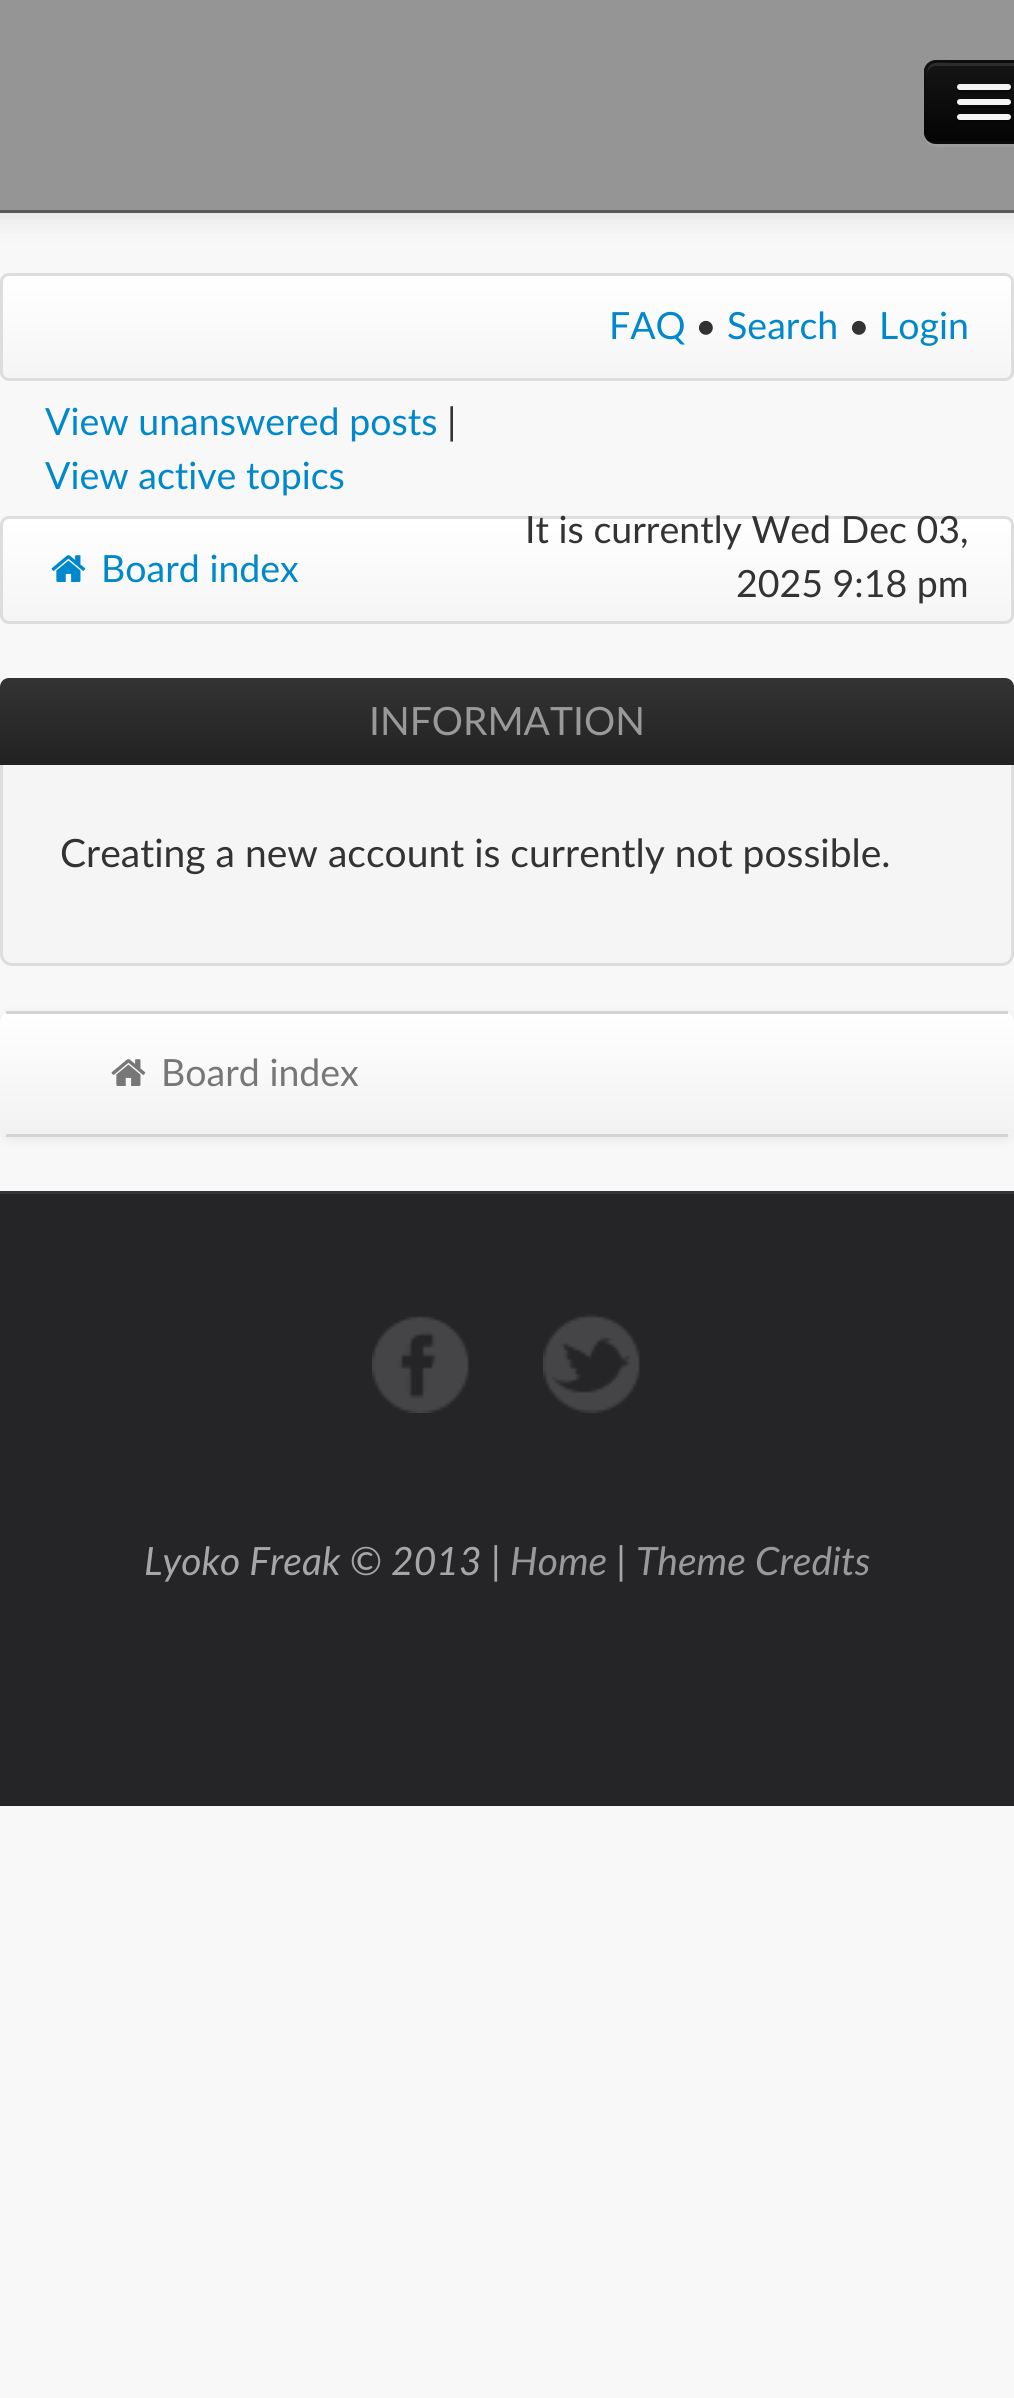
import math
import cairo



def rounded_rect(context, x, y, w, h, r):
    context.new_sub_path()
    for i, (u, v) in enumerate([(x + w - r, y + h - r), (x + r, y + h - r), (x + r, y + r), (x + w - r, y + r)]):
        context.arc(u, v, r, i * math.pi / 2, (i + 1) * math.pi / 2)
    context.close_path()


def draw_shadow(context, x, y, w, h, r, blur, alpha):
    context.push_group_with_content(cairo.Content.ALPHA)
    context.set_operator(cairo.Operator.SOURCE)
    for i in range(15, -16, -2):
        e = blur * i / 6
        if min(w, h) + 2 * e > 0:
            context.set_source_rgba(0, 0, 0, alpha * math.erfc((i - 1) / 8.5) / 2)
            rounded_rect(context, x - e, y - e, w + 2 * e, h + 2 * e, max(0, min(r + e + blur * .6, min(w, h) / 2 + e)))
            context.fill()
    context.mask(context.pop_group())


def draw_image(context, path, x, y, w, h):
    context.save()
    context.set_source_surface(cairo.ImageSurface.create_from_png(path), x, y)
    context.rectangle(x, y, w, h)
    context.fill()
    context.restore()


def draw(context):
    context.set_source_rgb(248 / 255, 248 / 255, 248 / 255)
    context.paint()
    context.set_source_rgb(0, 0, 0)
    draw_shadow(context, -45, 3, 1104, 213, 0, 15, 0.1)
    context.set_source_rgb(149 / 255, 149 / 255, 149 / 255)
    context.rectangle(0, 0, 1014, 210)
    context.fill()
    context.set_source_rgb(88 / 255, 88 / 255, 88 / 255)
    context.rectangle(0, 210, 1014, 3)
    context.fill()
    context.set_source_rgb(157 / 255, 157 / 255, 157 / 255)
    context.new_path()
    context.move_to(924, 132)
    context.curve_to(924, 150, 938, 147, 952, 147)
    context.line_to(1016, 147)
    context.curve_to(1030, 147, 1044, 150, 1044, 132)
    context.curve_to(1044, 139, 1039, 144, 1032, 144)
    context.line_to(936, 144)
    context.curve_to(929, 144, 924, 139, 924, 132)
    context.close_path()
    context.fill()
    context.set_source_rgb(14 / 255, 14 / 255, 14 / 255)
    rounded_rect(context, 924, 60, 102, 84, 12)
    context.fill()
    context.save()
    rounded_rect(context, 924, 60, 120, 84, 12)
    context.clip()
    gradient = cairo.LinearGradient(984, 63, 984, 141)
    gradient.add_color_stop_rgba(0, 21 / 255, 21 / 255, 21 / 255, 1)
    gradient.add_color_stop_rgba(1, 4 / 255, 4 / 255, 4 / 255, 1)
    context.set_source(gradient)
    context.rectangle(924, 63, 90, 78)
    context.fill()
    context.restore()
    context.set_source_rgb(44 / 255, 44 / 255, 44 / 255)
    context.new_path()
    context.move_to(936, 66)
    context.line_to(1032, 66)
    context.curve_to(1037, 66, 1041, 70, 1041, 75)
    context.curve_to(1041, 59, 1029, 63, 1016, 63)
    context.line_to(952, 63)
    context.curve_to(939, 63, 927, 59, 927, 75)
    context.curve_to(927, 70, 931, 66, 936, 66)
    context.close_path()
    context.fill()
    context.new_path()
    context.move_to(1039.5, 139.5)
    context.curve_to(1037.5, 141.5, 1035, 142.5, 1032, 142.5)
    context.line_to(936, 142.5)
    context.curve_to(933, 142.5, 930.5, 141.5, 928.5, 139.5)
    context.set_source_rgba(0, 0, 0, 0.25)
    context.set_line_width(3)
    context.stroke()
    context.new_path()
    context.move_to(928.5, 139.5)
    context.curve_to(926.5, 137.5, 925.5, 135, 925.5, 132)
    context.line_to(925.5, 72)
    context.curve_to(925.5, 69, 926.5, 66.5, 928.5, 64.5)
    context.curve_to(930.5, 62.5, 933, 61.5, 936, 61.5)
    context.line_to(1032, 61.5)
    context.curve_to(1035, 61.5, 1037.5, 62.5, 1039.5, 64.5)
    context.curve_to(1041.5, 66.5, 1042.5, 69, 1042.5, 72)
    context.line_to(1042.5, 132)
    context.curve_to(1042.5, 135, 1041.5, 137.5, 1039.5, 139.5)
    context.set_source_rgba(0, 0, 0, 0.1)
    context.stroke()
    context.set_source_rgb(11 / 255, 11 / 255, 11 / 255)
    context.new_path()
    context.move_to(957, 88)
    context.curve_to(954, 95, 968, 93, 968, 93)
    context.line_to(1000, 93)
    context.curve_to(1000, 93, 1014, 95, 1011, 88)
    context.curve_to(1010, 89, 1009, 90, 1008, 90)
    context.line_to(960, 90)
    context.curve_to(959, 90, 958, 89, 957, 88)
    context.close_path()
    context.fill()
    context.set_source_rgb(245 / 255, 245 / 255, 245 / 255)
    rounded_rect(context, 957, 84, 54, 6, 3)
    context.fill()
    context.set_source_rgb(9 / 255, 9 / 255, 9 / 255)
    context.new_path()
    context.move_to(957, 104)
    context.curve_to(954, 110, 968, 108, 968, 108)
    context.line_to(1000, 108)
    context.curve_to(1000, 108, 1014, 110, 1011, 104)
    context.curve_to(1010, 104, 1009, 105, 1008, 105)
    context.line_to(960, 105)
    context.curve_to(959, 105, 958, 104, 957, 104)
    context.close_path()
    context.fill()
    context.set_source_rgb(245 / 255, 245 / 255, 245 / 255)
    rounded_rect(context, 957, 99, 54, 6, 3)
    context.fill()
    context.set_source_rgb(6 / 255, 6 / 255, 6 / 255)
    context.new_path()
    context.move_to(957, 118)
    context.curve_to(954, 125, 968, 123, 968, 123)
    context.line_to(1000, 123)
    context.curve_to(1000, 123, 1014, 125, 1011, 118)
    context.curve_to(1010, 119, 1009, 120, 1008, 120)
    context.line_to(960, 120)
    context.curve_to(959, 120, 958, 119, 957, 118)
    context.close_path()
    context.fill()
    context.set_source_rgb(245 / 255, 245 / 255, 245 / 255)
    rounded_rect(context, 957, 114, 54, 6, 3)
    context.fill()
    context.save()
    rounded_rect(context, 0, 273, 1014, 108, 9)
    context.clip()
    gradient = cairo.LinearGradient(507, 276, 507, 378)
    gradient.add_color_stop_rgba(0, 1, 1, 1, 1)
    gradient.add_color_stop_rgba(1, 245 / 255, 245 / 255, 245 / 255, 1)
    context.set_source(gradient)
    context.rectangle(0, 276, 1014, 102)
    context.fill()
    context.restore()
    rounded_rect(context, 1.5, 274.5, 1011, 105, 7.5)
    context.set_source_rgb(221 / 255, 221 / 255, 221 / 255)
    context.stroke()
    context.save()
    rounded_rect(context, 0, 516, 1014, 108, 9)
    context.clip()
    gradient = cairo.LinearGradient(507, 519, 507, 621)
    gradient.add_color_stop_rgba(0, 1, 1, 1, 1)
    gradient.add_color_stop_rgba(1, 245 / 255, 245 / 255, 245 / 255, 1)
    context.set_source(gradient)
    context.rectangle(0, 519, 1014, 102)
    context.fill()
    context.restore()
    rounded_rect(context, 1.5, 517.5, 1011, 105, 7.5)
    context.stroke()
    draw_image(context, "images/1.png", 51, 555, 35, 27)
    context.set_source_rgb(245 / 255, 245 / 255, 245 / 255)
    rounded_rect(context, 1.5, 679.5, 1011, 285, 10.5)
    context.fill_preserve()
    context.set_source_rgb(221 / 255, 221 / 255, 221 / 255)
    context.stroke()
    gradient = cairo.LinearGradient(507, 678, 507, 765)
    gradient.add_color_stop_rgba(0, 51 / 255, 51 / 255, 51 / 255, 1)
    gradient.add_color_stop_rgba(1, 34 / 255, 34 / 255, 34 / 255, 1)
    context.set_source(gradient)
    context.new_path()
    context.move_to(9, 678)
    context.line_to(1005, 678)
    context.curve_to(1010, 678, 1014, 682, 1014, 687)
    context.line_to(1014, 765)
    context.line_to(0, 765)
    context.line_to(0, 687)
    context.curve_to(0, 682, 4, 678, 9, 678)
    context.close_path()
    context.fill()
    context.set_source_rgb(0, 0, 0)
    draw_shadow(context, 0, 1014, 1014, 126, 12, 6, 0.07)
    context.set_source_rgb(250 / 255, 250 / 255, 250 / 255)
    rounded_rect(context, 0, 1011, 1014, 126, 12)
    context.fill()
    context.save()
    rounded_rect(context, 0, 1011, 1014, 126, 12)
    context.clip()
    gradient = cairo.LinearGradient(507, 1014, 507, 1134)
    gradient.add_color_stop_rgba(0, 1, 1, 1, 1)
    gradient.add_color_stop_rgba(1, 242 / 255, 242 / 255, 242 / 255, 1)
    context.set_source(gradient)
    context.rectangle(0, 1014, 1014, 120)
    context.fill()
    context.restore()
    context.set_source_rgb(212 / 255, 212 / 255, 212 / 255)
    context.rectangle(6, 1011, 1002, 3)
    context.fill()
    context.rectangle(6, 1134, 1002, 3)
    context.fill()
    draw_image(context, "images/2.png", 111, 1059, 35, 27)
    context.set_source_rgb(37 / 255, 37 / 255, 40 / 255)
    context.rectangle(0, 1194, 1014, 612)
    context.fill()
    context.set_source_rgb(52 / 255, 52 / 255, 55 / 255)
    context.rectangle(0, 1191, 1014, 3)
    context.fill()
    draw_image(context, "images/3.png", 372, 1316, 97, 97)
    draw_image(context, "images/4.png", 543, 1314, 97, 99)
    context.select_font_face("Lato")
    context.set_font_size(37.5)
    context.set_source_rgb(0, 136 / 255, 204 / 255)
    context.move_to(609, 339)
    context.show_text("FAQ")
    context.set_source_rgb(51 / 255, 51 / 255, 51 / 255)
    context.move_to(695, 339)
    context.show_text("•")
    context.set_source_rgb(0, 136 / 255, 204 / 255)
    context.move_to(727, 339)
    context.show_text("Search")
    context.set_source_rgb(51 / 255, 51 / 255, 51 / 255)
    context.move_to(848, 339)
    context.show_text("•")
    context.set_source_rgb(0, 136 / 255, 204 / 255)
    context.move_to(879, 339)
    context.show_text("Login")
    context.move_to(45, 435)
    context.show_text("View unanswered posts")
    context.set_source_rgb(51 / 255, 51 / 255, 51 / 255)
    context.move_to(447, 435)
    context.show_text("|")
    context.set_source_rgb(0, 136 / 255, 204 / 255)
    context.move_to(45, 489)
    context.show_text("View active topics")
    context.set_source_rgb(51 / 255, 51 / 255, 51 / 255)
    context.move_to(525, 543)
    context.show_text("It is currently Wed Dec 03,")
    context.move_to(736, 597)
    context.show_text("2025 9:18 pm")
    context.set_source_rgb(0, 136 / 255, 204 / 255)
    context.move_to(101, 582)
    context.show_text("Board index")
    context.set_font_size(39)
    context.set_source_rgb(153 / 255, 153 / 255, 153 / 255)
    context.move_to(369, 735)
    context.show_text("INFORMATION")
    context.set_source_rgb(51 / 255, 51 / 255, 51 / 255)
    context.move_to(60, 867)
    context.show_text("Creating a new account is currently not possible.")
    context.set_font_size(37.5)
    context.set_source_rgb(119 / 255, 119 / 255, 119 / 255)
    context.move_to(161, 1086)
    context.show_text("Board index")
    context.select_font_face("Lato", cairo.FontSlant.ITALIC)
    context.set_font_size(39)
    context.set_source_rgb(166 / 255, 166 / 255, 167 / 255)
    context.move_to(144, 1575)
    context.show_text("Lyoko Freak © 2013 |")
    context.set_source_rgb(153 / 255, 153 / 255, 153 / 255)
    context.move_to(510, 1575)
    context.show_text("Home")
    context.set_source_rgb(166 / 255, 166 / 255, 167 / 255)
    context.move_to(616, 1575)
    context.show_text("|")
    context.set_source_rgb(153 / 255, 153 / 255, 153 / 255)
    context.move_to(636, 1575)
    context.show_text("Theme Credits")


surface = cairo.ImageSurface(cairo.Format.RGB24, 1014, 2398)
context = cairo.Context(surface)
options = cairo.FontOptions()
options.set_hint_metrics(cairo.HintMetrics.OFF)
options.set_hint_style(cairo.HintStyle.NONE)
context.set_font_options(options)
context.set_miter_limit(4)
draw(context)
surface.write_to_png("out.png")
